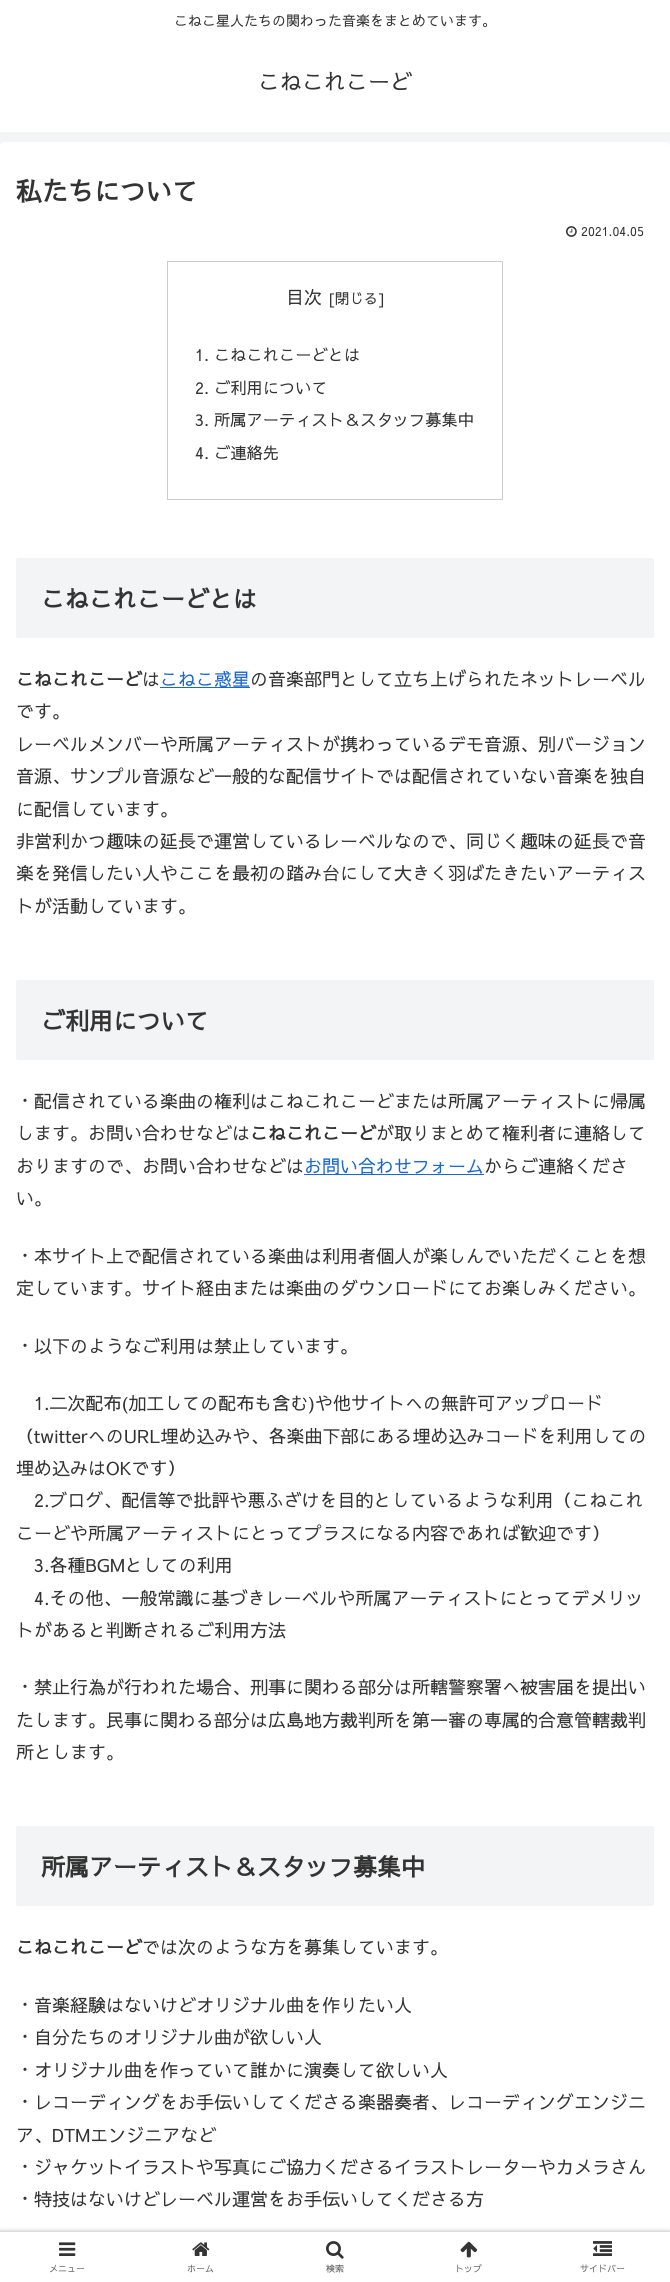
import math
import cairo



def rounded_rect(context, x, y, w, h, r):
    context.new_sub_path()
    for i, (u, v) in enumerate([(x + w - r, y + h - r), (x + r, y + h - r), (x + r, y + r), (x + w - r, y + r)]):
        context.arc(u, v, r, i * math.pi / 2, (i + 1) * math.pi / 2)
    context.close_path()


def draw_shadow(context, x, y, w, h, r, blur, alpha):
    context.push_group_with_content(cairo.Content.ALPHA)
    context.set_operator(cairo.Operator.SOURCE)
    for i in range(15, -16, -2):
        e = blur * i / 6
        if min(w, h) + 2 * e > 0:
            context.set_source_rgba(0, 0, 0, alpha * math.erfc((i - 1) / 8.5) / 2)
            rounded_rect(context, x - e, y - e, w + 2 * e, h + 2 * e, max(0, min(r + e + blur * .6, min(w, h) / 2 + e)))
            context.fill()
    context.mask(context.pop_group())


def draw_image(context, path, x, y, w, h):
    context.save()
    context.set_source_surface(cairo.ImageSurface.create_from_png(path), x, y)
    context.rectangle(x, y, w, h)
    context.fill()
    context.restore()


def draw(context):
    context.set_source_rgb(244 / 255, 245 / 255, 247 / 255)
    context.paint()
    context.set_source_rgb(1, 1, 1)
    context.rectangle(0, 0, 670, 132)
    context.fill()
    rounded_rect(context, 0, 142, 670, 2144, 4)
    context.fill()
    draw_image(context, "images/1.png", 566, 226, 11, 11)
    context.rectangle(167.5, 261.5, 335, 238)
    context.set_source_rgb(204 / 255, 204 / 255, 204 / 255)
    context.set_line_width(1)
    context.stroke()
    context.set_source_rgb(243 / 255, 244 / 255, 245 / 255)
    rounded_rect(context, 16, 558, 638, 80, 2)
    context.fill()
    context.set_source_rgb(25 / 255, 103 / 255, 210 / 255)
    context.rectangle(160, 687, 90, 1)
    context.fill()
    context.set_source_rgb(243 / 255, 244 / 255, 245 / 255)
    rounded_rect(context, 16, 980, 638, 80, 2)
    context.fill()
    context.set_source_rgb(25 / 255, 103 / 255, 210 / 255)
    context.rectangle(304, 1174, 180, 1)
    context.fill()
    context.set_source_rgb(243 / 255, 244 / 255, 245 / 255)
    rounded_rect(context, 16, 1826, 638, 80, 2)
    context.fill()
    context.set_source_rgb(169 / 255, 169 / 255, 169 / 255)
    draw_shadow(context, 0, 2232, 670, 50, 0, 2.5, 1)
    context.set_source_rgb(1, 1, 1)
    context.rectangle(0, 2232, 670, 50)
    context.fill()
    draw_image(context, "images/2.png", 59, 2242, 17, 14)
    draw_image(context, "images/3.png", 192, 2242, 18, 14)
    draw_image(context, "images/4.png", 326, 2241, 18, 18)
    draw_image(context, "images/5.png", 460, 2241, 17, 17)
    draw_image(context, "images/6.png", 593, 2241, 19, 15)
    context.select_font_face("Sawarabi Gothic")
    context.set_font_size(14)
    context.set_source_rgb(51 / 255, 51 / 255, 51 / 255)
    context.move_to(174, 26)
    context.show_text("こねこ星人たちの関わった音楽をまとめています。")
    context.set_font_size(22)
    context.move_to(258, 90)
    context.show_text("こねこれこーど")
    context.select_font_face("Sawarabi Gothic", cairo.FontSlant.NORMAL, cairo.FontWeight.BOLD)
    context.set_font_size(26)
    context.move_to(16, 201)
    context.show_text("私たちについて")
    context.select_font_face("Sawarabi Gothic")
    context.set_font_size(12.5)
    context.move_to(581, 236)
    context.show_text("2021.04.05")
    context.set_font_size(18)
    context.move_to(286, 304)
    context.show_text("目次")
    context.set_font_size(14.5)
    context.move_to(328, 304)
    context.show_text("[閉じる]")
    context.set_font_size(16.25)
    context.move_to(195, 361)
    context.show_text("1. こねこれこーどとは")
    context.move_to(195, 394)
    context.show_text("2. ご利用について")
    context.move_to(195, 426)
    context.show_text("3. 所属アーティスト＆スタッフ募集中")
    context.move_to(195, 459)
    context.show_text("4. ご連絡先")
    context.select_font_face("Sawarabi Gothic", cairo.FontSlant.NORMAL, cairo.FontWeight.BOLD)
    context.set_font_size(24)
    context.move_to(41, 608)
    context.show_text("こねこれこーどとは")
    context.set_font_size(18)
    context.move_to(16, 686)
    context.show_text("こねこれこーど")
    context.select_font_face("Sawarabi Gothic")
    context.move_to(142, 686)
    context.show_text("は")
    context.set_source_rgb(25 / 255, 103 / 255, 210 / 255)
    context.move_to(160, 686)
    context.show_text("こねこ惑星")
    context.set_source_rgb(51 / 255, 51 / 255, 51 / 255)
    context.move_to(250, 686)
    context.show_text("の音楽部門として立ち上げられたネットレーベル")
    context.move_to(16, 718)
    context.show_text("です。")
    context.move_to(16, 751)
    context.show_text("レーベルメンバーや所属アーティストが携わっているデモ音源、別バージョン")
    context.move_to(16, 783)
    context.show_text("音源、サンプル音源など一般的な配信サイトでは配信されていない音楽を独自")
    context.move_to(16, 816)
    context.show_text("に配信しています。")
    context.move_to(16, 848)
    context.show_text("非営利かつ趣味の延長で運営しているレーベルなので、同じく趣味の延長で音")
    context.move_to(16, 880)
    context.show_text("楽を発信したい人やここを最初の踏み台にして大きく羽ばたきたいアーティス")
    context.move_to(16, 913)
    context.show_text("トが活動しています。")
    context.select_font_face("Sawarabi Gothic", cairo.FontSlant.NORMAL, cairo.FontWeight.BOLD)
    context.set_font_size(24)
    context.move_to(41, 1030)
    context.show_text("ご利用について")
    context.select_font_face("Sawarabi Gothic")
    context.set_font_size(18)
    context.move_to(16, 1108)
    context.show_text("・配信されている楽曲の権利はこねこれこーどまたは所属アーティストに帰属")
    context.move_to(16, 1140)
    context.show_text("します。お問い合わせなどは")
    context.select_font_face("Sawarabi Gothic", cairo.FontSlant.NORMAL, cairo.FontWeight.BOLD)
    context.move_to(250, 1140)
    context.show_text("こねこれこーど")
    context.select_font_face("Sawarabi Gothic")
    context.move_to(376, 1140)
    context.show_text("が取りまとめて権利者に連絡して")
    context.move_to(16, 1173)
    context.show_text("おりますので、お問い合わせなどは")
    context.set_source_rgb(25 / 255, 103 / 255, 210 / 255)
    context.move_to(304, 1173)
    context.show_text("お問い合わせフォーム")
    context.set_source_rgb(51 / 255, 51 / 255, 51 / 255)
    context.move_to(484, 1173)
    context.show_text("からご連絡くださ")
    context.move_to(16, 1205)
    context.show_text("い。")
    context.move_to(16, 1263)
    context.show_text("・本サイト上で配信されている楽曲は利用者個人が楽しんでいただくことを想")
    context.move_to(16, 1295)
    context.show_text("定しています。サイト経由または楽曲のダウンロードにてお楽しみください。")
    context.move_to(16, 1353)
    context.show_text("・以下のようなご利用は禁止しています。")
    context.move_to(34, 1410)
    context.show_text("1.二次配布(加工しての配布も含む)や他サイトへの無許可アップロード")
    context.move_to(16, 1443)
    context.show_text("（twitterへのURL埋め込みや、各楽曲下部にある埋め込みコードを利用しての")
    context.move_to(16, 1475)
    context.show_text("埋め込みはOKです）")
    context.move_to(34, 1507)
    context.show_text("2.ブログ、配信等で批評や悪ふざけを目的としているような利用（こねこれ")
    context.move_to(16, 1540)
    context.show_text("こーどや所属アーティストにとってプラスになる内容であれば歓迎です）")
    context.move_to(34, 1572)
    context.show_text("3.各種BGMとしての利用")
    context.move_to(34, 1605)
    context.show_text("4.その他、一般常識に基づきレーベルや所属アーティストにとってデメリッ")
    context.move_to(16, 1637)
    context.show_text("トがあると判断されるご利用方法")
    context.move_to(16, 1694)
    context.show_text("・禁止行為が行われた場合、刑事に関わる部分は所轄警察署へ被害届を提出い")
    context.move_to(16, 1727)
    context.show_text("たします。民事に関わる部分は広島地方裁判所を第一審の専属的合意管轄裁判")
    context.move_to(16, 1759)
    context.show_text("所とします。")
    context.select_font_face("Sawarabi Gothic", cairo.FontSlant.NORMAL, cairo.FontWeight.BOLD)
    context.set_font_size(24)
    context.move_to(41, 1876)
    context.show_text("所属アーティスト＆スタッフ募集中")
    context.set_font_size(18)
    context.move_to(16, 1954)
    context.show_text("こねこれこーど")
    context.select_font_face("Sawarabi Gothic")
    context.move_to(142, 1954)
    context.show_text("では次のような方を募集しています。")
    context.move_to(16, 2012)
    context.show_text("・音楽経験はないけどオリジナル曲を作りたい人")
    context.move_to(16, 2044)
    context.show_text("・自分たちのオリジナル曲が欲しい人")
    context.move_to(16, 2077)
    context.show_text("・オリジナル曲を作っていて誰かに演奏して欲しい人")
    context.move_to(16, 2109)
    context.show_text("・レコーディングをお手伝いしてくださる楽器奏者、レコーディングエンジニ")
    context.move_to(16, 2142)
    context.show_text("ア、DTMエンジニアなど")
    context.move_to(16, 2174)
    context.show_text("・ジャケットイラストや写真にご協力くださるイラストレーターやカメラさん")
    context.move_to(16, 2206)
    context.show_text("・特技はないけどレーベル運営をお手伝いしてくださる方")
    context.set_font_size(9)
    context.set_source_rgb(92 / 255, 92 / 255, 92 / 255)
    context.move_to(49, 2272)
    context.show_text("メニュー")
    context.move_to(187, 2272)
    context.show_text("ホーム")
    context.move_to(326, 2272)
    context.show_text("検索")
    context.move_to(455, 2272)
    context.show_text("トップ")
    context.move_to(580, 2272)
    context.show_text("サイドバー")


surface = cairo.ImageSurface(cairo.Format.RGB24, 670, 2282)
context = cairo.Context(surface)
options = cairo.FontOptions()
options.set_hint_metrics(cairo.HintMetrics.OFF)
options.set_hint_style(cairo.HintStyle.NONE)
context.set_font_options(options)
context.set_miter_limit(4)
draw(context)
surface.write_to_png("out.png")
